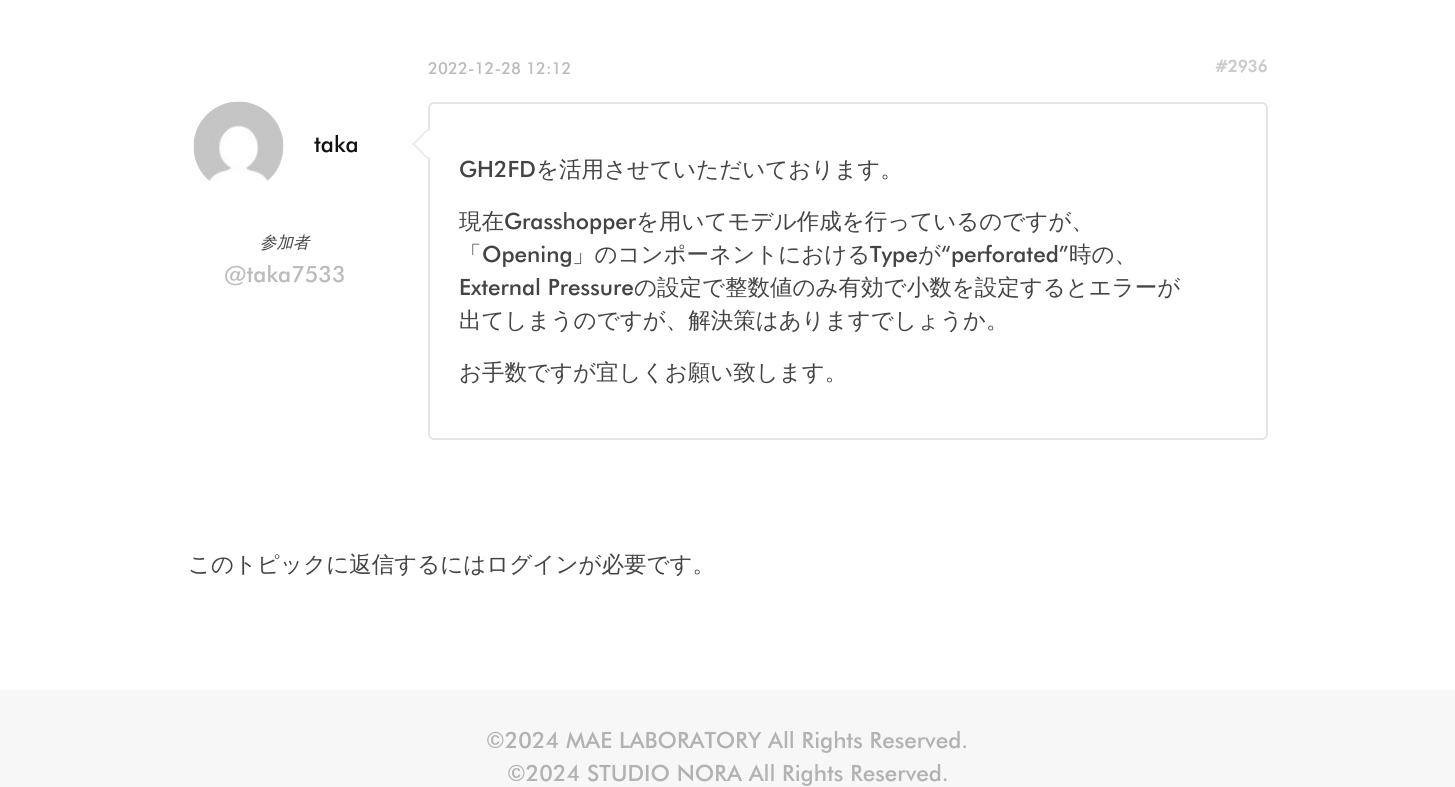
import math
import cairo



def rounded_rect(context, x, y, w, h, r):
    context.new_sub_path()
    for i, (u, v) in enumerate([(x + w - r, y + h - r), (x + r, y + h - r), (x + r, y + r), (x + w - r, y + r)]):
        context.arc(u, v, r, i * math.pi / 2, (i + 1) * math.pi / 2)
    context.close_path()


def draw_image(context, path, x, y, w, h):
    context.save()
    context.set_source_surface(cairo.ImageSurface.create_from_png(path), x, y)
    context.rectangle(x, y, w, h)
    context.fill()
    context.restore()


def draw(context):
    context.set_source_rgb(1, 1, 1)
    context.paint()
    draw_image(context, "images/1.png", 193, 101, 91, 80)
    rounded_rect(context, 429, 103, 838, 336, 5)
    context.set_source_rgb(229 / 255, 229 / 255, 229 / 255)
    context.stroke()
    context.set_source_rgb(1, 1, 1)
    context.new_path()
    context.move_to(427.5, 129)
    context.line_to(442.5, 144)
    context.line_to(427.5, 159)
    context.line_to(412.5, 144)
    context.close_path()
    context.fill()
    context.set_source_rgb(229 / 255, 229 / 255, 229 / 255)
    context.new_path()
    context.move_to(413.5, 143)
    context.line_to(428.5, 158)
    context.line_to(427.5, 159)
    context.line_to(412.5, 144)
    context.close_path()
    context.fill()
    context.new_path()
    context.move_to(427.5, 129)
    context.line_to(428.5, 130)
    context.line_to(413.5, 145)
    context.line_to(412.5, 144)
    context.close_path()
    context.fill()
    context.set_source_rgb(247 / 255, 247 / 255, 247 / 255)
    context.rectangle(0, 690, 1455, 97)
    context.fill()
    context.select_font_face("Futura Medium")
    context.set_font_size(16.5)
    context.set_source_rgb(187 / 255, 187 / 255, 187 / 255)
    context.move_to(428, 74)
    context.show_text("2022-12-28 12:12")
    context.select_font_face("Futura", cairo.FontSlant.NORMAL, cairo.FontWeight.BOLD)
    context.set_source_rgb(204 / 255, 204 / 255, 204 / 255)
    context.move_to(1215, 72)
    context.show_text("#2936")
    context.select_font_face("Futura Medium")
    context.set_font_size(22.5)
    context.set_source_rgb(17 / 255, 17 / 255, 17 / 255)
    context.move_to(314, 152)
    context.show_text("taka")
    context.select_font_face("WenQuanYi Zen Hei Medium", cairo.FontSlant.ITALIC)
    context.set_font_size(16.5)
    context.set_source_rgb(68 / 255, 68 / 255, 68 / 255)
    context.move_to(260, 248)
    context.show_text("参加者")
    context.select_font_face("Futura Medium")
    context.set_font_size(22.5)
    context.set_source_rgb(187 / 255, 187 / 255, 187 / 255)
    context.move_to(224, 282)
    context.show_text("@taka7533")
    context.set_source_rgb(68 / 255, 68 / 255, 68 / 255)
    context.move_to(459, 177)
    context.show_text("GH2FD")
    context.select_font_face("WenQuanYi Zen Hei Medium")
    context.move_to(536, 177)
    context.show_text("を活用させていただいております。")
    context.move_to(459, 229)
    context.show_text("現在")
    context.select_font_face("Futura Medium")
    context.move_to(504, 229)
    context.show_text("Grasshopper")
    context.select_font_face("WenQuanYi Zen Hei Medium")
    context.move_to(636, 229)
    context.show_text("を用いてモデル作成を行っているのですが、")
    context.move_to(459, 262)
    context.show_text("「")
    context.select_font_face("Futura Medium")
    context.move_to(482, 262)
    context.show_text("Opening")
    context.select_font_face("WenQuanYi Zen Hei Medium")
    context.move_to(572, 262)
    context.show_text("」のコンポーネントにおける")
    context.select_font_face("Futura Medium")
    context.move_to(870, 262)
    context.show_text("Type")
    context.select_font_face("WenQuanYi Zen Hei Medium")
    context.move_to(918, 262)
    context.show_text("が")
    context.select_font_face("Futura Medium")
    context.move_to(941, 262)
    context.show_text("“perforated”")
    context.select_font_face("WenQuanYi Zen Hei Medium")
    context.move_to(1069, 262)
    context.show_text("時の、")
    context.select_font_face("Futura Medium")
    context.move_to(459, 295)
    context.show_text("External Pressure")
    context.select_font_face("WenQuanYi Zen Hei Medium")
    context.move_to(634, 295)
    context.show_text("の設定で整数値のみ有効で小数を設定するとエラーが")
    context.move_to(459, 328)
    context.show_text("出てしまうのですが、解決策はありますでしょうか。")
    context.move_to(459, 380)
    context.show_text("お手数ですが宜しくお願い致します。")
    context.move_to(188, 572)
    context.show_text("このトピックに返信するにはログインが必要です。")
    context.select_font_face("Futura Medium")
    context.set_source_rgb(178 / 255, 178 / 255, 178 / 255)
    context.move_to(486, 748)
    context.show_text("©2024 MAE LABORATORY All Rights Reserved.")
    context.move_to(507, 781)
    context.show_text("©2024 STUDIO NORA All Rights Reserved.")


surface = cairo.ImageSurface(cairo.Format.RGB24, 1455, 787)
context = cairo.Context(surface)
options = cairo.FontOptions()
options.set_hint_metrics(cairo.HintMetrics.OFF)
options.set_hint_style(cairo.HintStyle.NONE)
context.set_font_options(options)
context.set_miter_limit(4)
draw(context)
surface.write_to_png("out.png")
